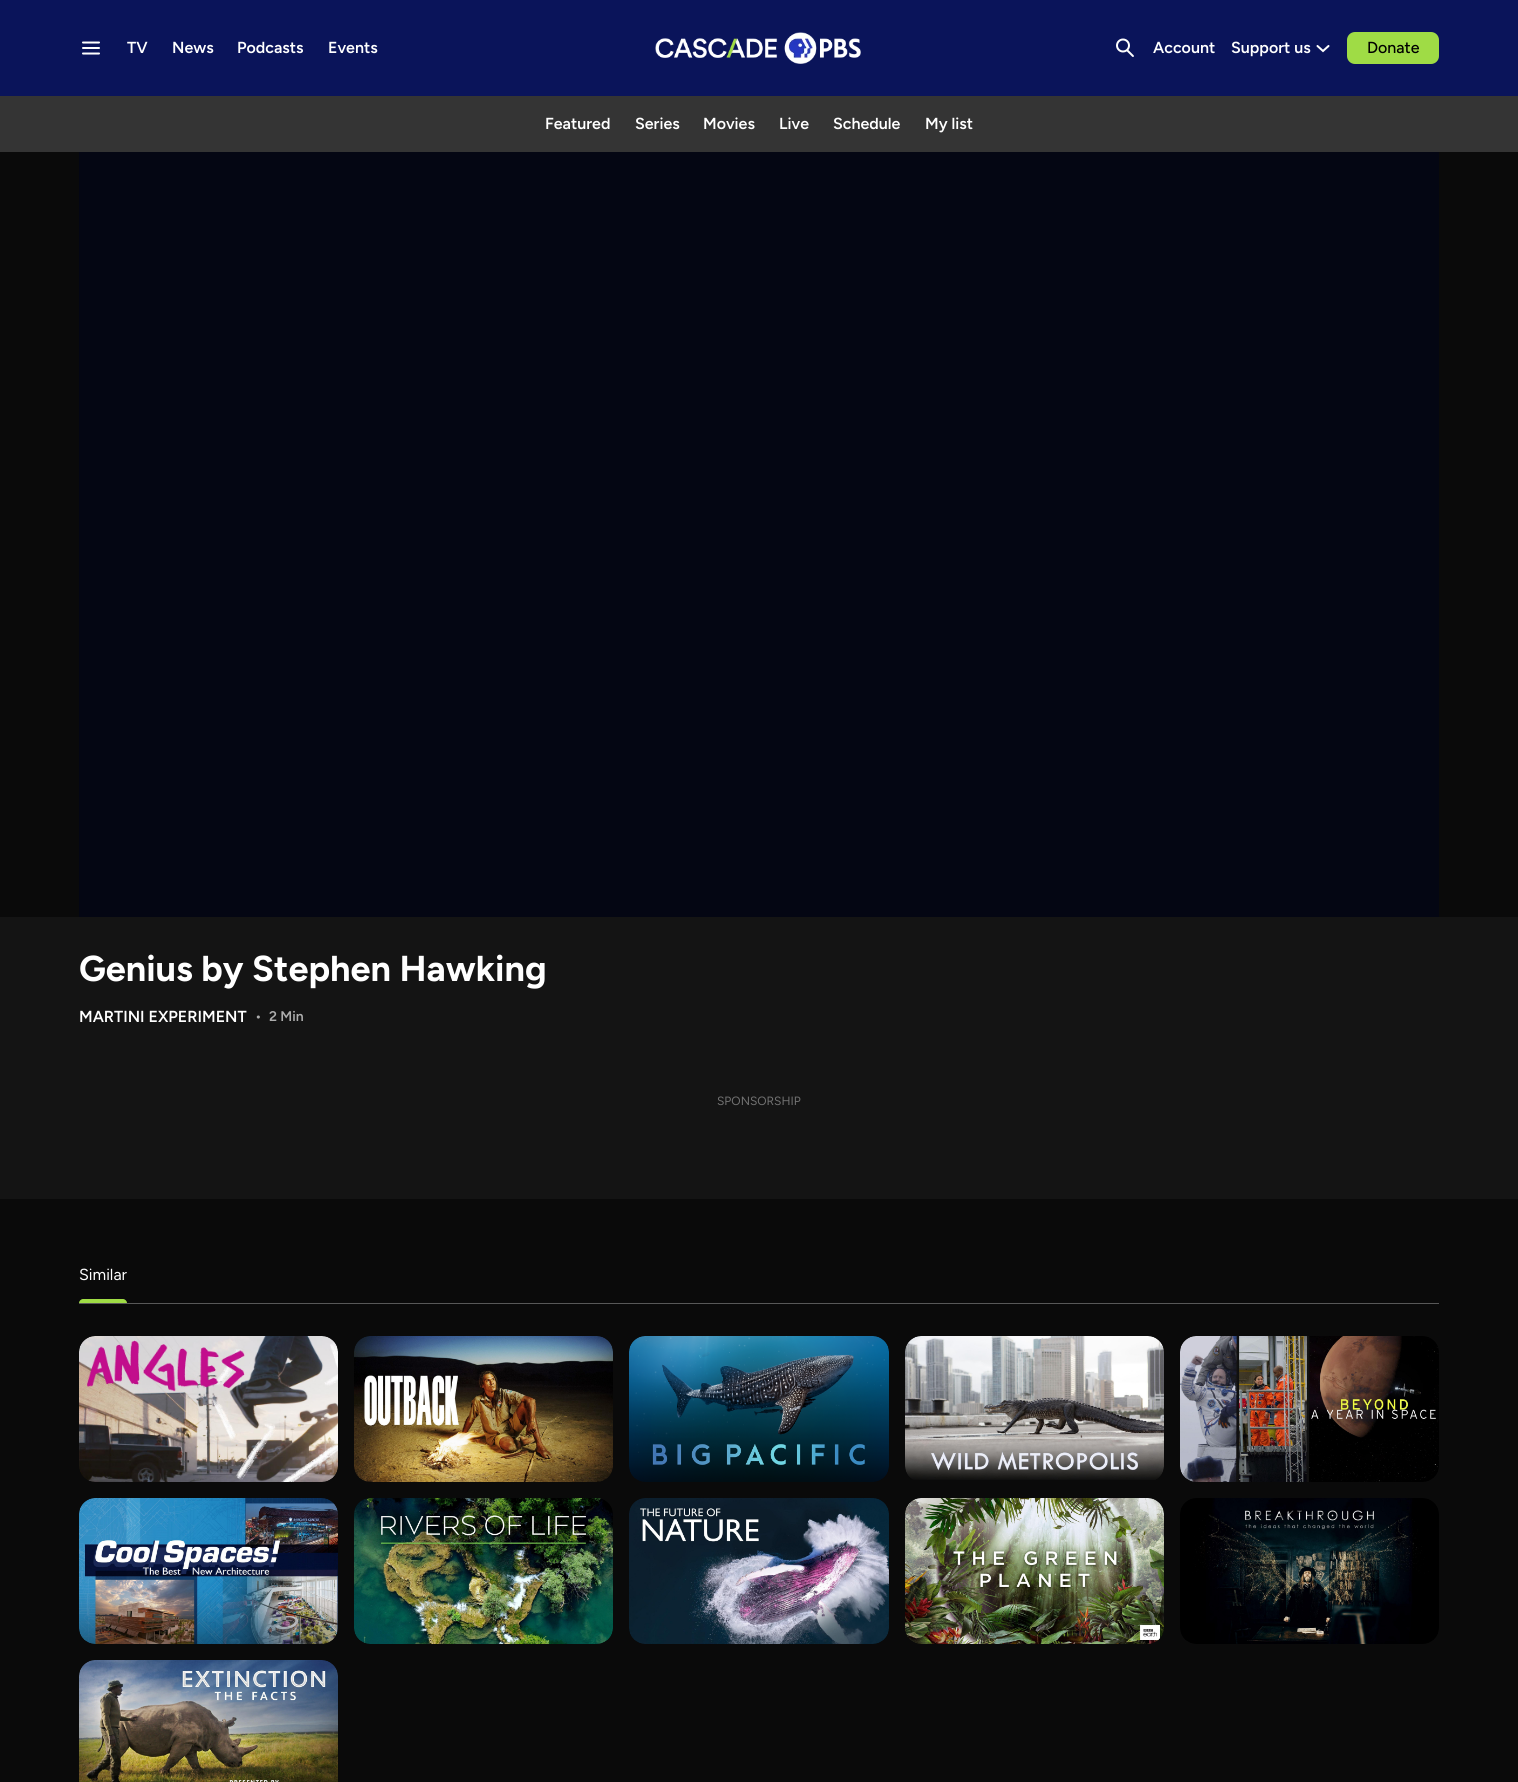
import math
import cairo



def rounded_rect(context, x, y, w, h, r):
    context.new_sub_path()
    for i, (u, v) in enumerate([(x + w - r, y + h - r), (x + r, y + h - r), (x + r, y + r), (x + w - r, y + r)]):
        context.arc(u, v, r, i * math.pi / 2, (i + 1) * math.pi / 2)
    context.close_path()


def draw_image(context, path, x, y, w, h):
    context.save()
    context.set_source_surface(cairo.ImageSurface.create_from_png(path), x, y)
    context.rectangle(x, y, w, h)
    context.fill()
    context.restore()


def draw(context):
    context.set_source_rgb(10 / 255, 20 / 255, 90 / 255)
    context.paint()
    draw_image(context, "images/1.png", 82, 41, 18, 14)
    draw_image(context, "images/2.png", 655, 32, 206, 32)
    draw_image(context, "images/3.png", 1116, 38, 18, 19)
    context.new_path()
    context.move_to(1328.5, 46)
    context.line_to(1323, 51)
    context.line_to(1317.5, 46)
    context.set_source_rgb(1, 1, 1)
    context.set_line_cap(cairo.LineCap.ROUND)
    context.stroke()
    context.set_source_rgb(159 / 255, 220 / 255, 69 / 255)
    rounded_rect(context, 1347, 32, 92, 32, 8)
    context.fill()
    context.set_source_rgb(52 / 255, 52 / 255, 52 / 255)
    context.rectangle(0, 96, 1518, 56)
    context.fill()
    context.set_source_rgb(10 / 255, 10 / 255, 10 / 255)
    context.rectangle(0, 152, 1518, 1630)
    context.fill()
    context.set_source_rgb(4 / 255, 6 / 255, 19 / 255)
    context.rectangle(79, 152, 1360, 765)
    context.fill()
    context.set_source_rgb(20 / 255, 20 / 255, 20 / 255)
    context.rectangle(0, 917, 1518, 282)
    context.fill()
    context.set_source_rgb(88 / 255, 88 / 255, 88 / 255)
    context.rectangle(79, 1303, 1360, 1)
    context.fill()
    context.set_source_rgb(159 / 255, 220 / 255, 69 / 255)
    context.new_path()
    context.move_to(83, 1299)
    context.line_to(123, 1299)
    context.curve_to(125, 1299, 127, 1301, 127, 1303)
    context.line_to(79, 1303)
    context.curve_to(79, 1301, 81, 1299, 83, 1299)
    context.close_path()
    context.fill()
    draw_image(context, "images/4.png", 79, 1336, 259, 146)
    draw_image(context, "images/5.png", 354, 1336, 259, 146)
    draw_image(context, "images/6.png", 629, 1336, 260, 146)
    draw_image(context, "images/7.png", 905, 1336, 259, 144)
    draw_image(context, "images/8.png", 1180, 1336, 259, 146)
    draw_image(context, "images/9.png", 79, 1498, 259, 146)
    draw_image(context, "images/10.png", 354, 1498, 259, 146)
    draw_image(context, "images/11.png", 629, 1498, 260, 146)
    draw_image(context, "images/12.png", 905, 1498, 259, 146)
    draw_image(context, "images/13.png", 1180, 1498, 259, 146)
    draw_image(context, "images/14.png", 79, 1660, 259, 122)
    context.select_font_face("Figtree SemiBold")
    context.set_font_size(16)
    context.set_source_rgb(1, 1, 1)
    context.move_to(127, 53)
    context.show_text("TV")
    context.move_to(172, 53)
    context.show_text("News")
    context.move_to(237, 53)
    context.show_text("Podcasts")
    context.move_to(328, 53)
    context.show_text("Events")
    context.move_to(1153, 53)
    context.show_text("Account")
    context.move_to(1231, 53)
    context.show_text("Support us")
    context.select_font_face("Figtree Medium")
    context.set_source_rgb(0, 0, 0)
    context.move_to(1367, 53)
    context.show_text("Donate")
    context.select_font_face("Figtree SemiBold")
    context.set_source_rgb(1, 1, 1)
    context.move_to(545, 129)
    context.show_text("Featured")
    context.move_to(635, 129)
    context.show_text("Series")
    context.move_to(703, 129)
    context.show_text("Movies")
    context.move_to(779, 129)
    context.show_text("Live")
    context.move_to(833, 129)
    context.show_text("Schedule")
    context.move_to(925, 129)
    context.show_text("My list")
    context.select_font_face("Figtree", cairo.FontSlant.NORMAL, cairo.FontWeight.BOLD)
    context.set_font_size(36)
    context.move_to(79, 981)
    context.show_text("Genius by Stephen Hawking")
    context.select_font_face("Figtree SemiBold")
    context.set_font_size(16)
    context.move_to(79, 1022)
    context.show_text("MARTINI EXPERIMENT")
    context.set_font_size(14)
    context.set_source_rgb(173 / 255, 173 / 255, 173 / 255)
    context.move_to(255, 1021)
    context.show_text("•")
    context.move_to(269, 1021)
    context.show_text("2 Min")
    context.select_font_face("Figtree")
    context.set_font_size(12)
    context.set_source_rgb(114 / 255, 114 / 255, 114 / 255)
    context.move_to(717, 1105)
    context.show_text("SPONSORSHIP")
    context.set_font_size(16)
    context.set_source_rgb(1, 1, 1)
    context.move_to(79, 1280)
    context.show_text("Similar")


surface = cairo.ImageSurface(cairo.Format.RGB24, 1518, 1782)
context = cairo.Context(surface)
options = cairo.FontOptions()
options.set_hint_metrics(cairo.HintMetrics.OFF)
options.set_hint_style(cairo.HintStyle.NONE)
context.set_font_options(options)
context.set_miter_limit(4)
draw(context)
surface.write_to_png("out.png")
